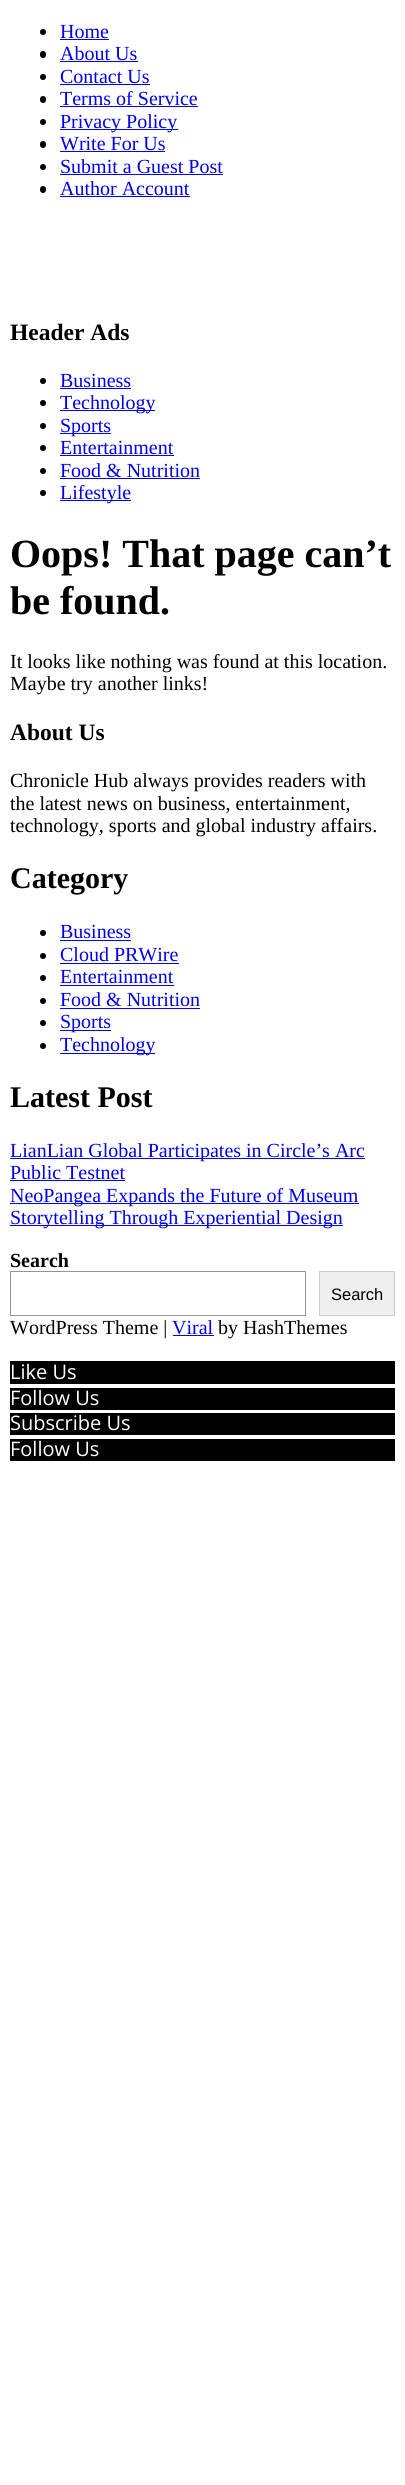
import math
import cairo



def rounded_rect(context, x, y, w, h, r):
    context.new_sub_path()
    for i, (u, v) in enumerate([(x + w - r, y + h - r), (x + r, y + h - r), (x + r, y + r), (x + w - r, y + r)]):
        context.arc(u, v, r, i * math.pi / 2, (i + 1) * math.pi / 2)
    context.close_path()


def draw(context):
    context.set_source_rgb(1, 1, 1)
    context.paint()
    context.set_source_rgb(0, 0, 0)
    context.arc(43, 32, 3, 0, 2 * math.pi)
    context.fill()
    context.set_source_rgb(0, 0, 238 / 255)
    context.rectangle(60, 39, 49, 1)
    context.fill()
    context.set_source_rgb(0, 0, 0)
    rounded_rect(context, 40, 51, 6, 7, 3)
    context.fill()
    context.set_source_rgb(0, 0, 238 / 255)
    context.rectangle(60, 61, 78, 1)
    context.fill()
    context.set_source_rgb(0, 0, 0)
    context.arc(43, 77, 3, 0, 2 * math.pi)
    context.fill()
    context.set_source_rgb(0, 0, 238 / 255)
    context.rectangle(60, 84, 90, 1)
    context.fill()
    context.set_source_rgb(0, 0, 0)
    rounded_rect(context, 40, 96, 6, 7, 3)
    context.fill()
    context.set_source_rgb(0, 0, 238 / 255)
    context.rectangle(60, 106, 138, 1)
    context.fill()
    context.set_source_rgb(0, 0, 0)
    context.arc(43, 122, 3, 0, 2 * math.pi)
    context.fill()
    context.set_source_rgb(0, 0, 238 / 255)
    context.rectangle(60, 129, 118, 1)
    context.fill()
    context.set_source_rgb(0, 0, 0)
    rounded_rect(context, 40, 141, 6, 7, 3)
    context.fill()
    context.set_source_rgb(0, 0, 238 / 255)
    context.rectangle(60, 151, 105, 1)
    context.fill()
    context.set_source_rgb(0, 0, 0)
    context.arc(43, 167, 3, 0, 2 * math.pi)
    context.fill()
    context.set_source_rgb(0, 0, 238 / 255)
    context.rectangle(60, 174, 163, 1)
    context.fill()
    context.set_source_rgb(0, 0, 0)
    rounded_rect(context, 40, 186, 6, 7, 3)
    context.fill()
    context.set_source_rgb(0, 0, 238 / 255)
    context.rectangle(60, 196, 130, 1)
    context.fill()
    context.set_source_rgb(0, 0, 0)
    context.arc(43, 381, 3, 0, 2 * math.pi)
    context.fill()
    context.set_source_rgb(0, 0, 238 / 255)
    context.rectangle(60, 388, 71, 1)
    context.fill()
    context.set_source_rgb(0, 0, 0)
    context.arc(43, 403, 3, 0, 2 * math.pi)
    context.fill()
    context.set_source_rgb(0, 0, 238 / 255)
    context.rectangle(60, 410, 95, 1)
    context.fill()
    context.set_source_rgb(0, 0, 0)
    context.arc(43, 426, 3, 0, 2 * math.pi)
    context.fill()
    context.set_source_rgb(0, 0, 238 / 255)
    context.rectangle(60, 433, 51, 1)
    context.fill()
    context.set_source_rgb(0, 0, 0)
    context.arc(43, 448, 3, 0, 2 * math.pi)
    context.fill()
    context.set_source_rgb(0, 0, 238 / 255)
    context.rectangle(60, 455, 114, 1)
    context.fill()
    context.set_source_rgb(0, 0, 0)
    context.arc(43, 471, 3, 0, 2 * math.pi)
    context.fill()
    context.set_source_rgb(0, 0, 238 / 255)
    context.rectangle(60, 478, 140, 1)
    context.fill()
    context.set_source_rgb(0, 0, 0)
    context.arc(43, 493, 3, 0, 2 * math.pi)
    context.fill()
    context.set_source_rgb(0, 0, 238 / 255)
    context.rectangle(60, 500, 71, 1)
    context.fill()
    context.set_source_rgb(0, 0, 0)
    context.arc(43, 933, 3, 0, 2 * math.pi)
    context.fill()
    context.set_source_rgb(0, 0, 238 / 255)
    context.rectangle(60, 940, 71, 1)
    context.fill()
    context.set_source_rgb(0, 0, 0)
    context.arc(43, 956, 3, 0, 2 * math.pi)
    context.fill()
    context.set_source_rgb(0, 0, 238 / 255)
    context.rectangle(60, 963, 119, 1)
    context.fill()
    context.set_source_rgb(0, 0, 0)
    context.arc(43, 978, 3, 0, 2 * math.pi)
    context.fill()
    context.set_source_rgb(0, 0, 238 / 255)
    context.rectangle(60, 985, 114, 1)
    context.fill()
    context.set_source_rgb(0, 0, 0)
    context.arc(43, 1001, 3, 0, 2 * math.pi)
    context.fill()
    context.set_source_rgb(0, 0, 238 / 255)
    context.rectangle(60, 1008, 140, 1)
    context.fill()
    context.set_source_rgb(0, 0, 0)
    context.arc(43, 1023, 3, 0, 2 * math.pi)
    context.fill()
    context.set_source_rgb(0, 0, 238 / 255)
    context.rectangle(60, 1030, 51, 1)
    context.fill()
    context.set_source_rgb(0, 0, 0)
    context.arc(43, 1046, 3, 0, 2 * math.pi)
    context.fill()
    context.set_source_rgb(0, 0, 238 / 255)
    context.rectangle(60, 1053, 95, 1)
    context.fill()
    context.rectangle(10, 1158, 355, 1)
    context.fill()
    context.rectangle(10, 1180, 115, 1)
    context.fill()
    context.rectangle(10, 1203, 349, 1)
    context.fill()
    context.rectangle(10, 1225, 333, 1)
    context.fill()
    context.rectangle(10.5, 1271.5, 295, 44)
    context.set_source_rgb(148 / 255, 148 / 255, 148 / 255)
    context.set_line_width(1)
    context.stroke()
    context.set_source_rgb(239 / 255, 239 / 255, 239 / 255)
    context.rectangle(319.5, 1271.5, 75, 44)
    context.fill_preserve()
    context.set_source_rgb(204 / 255, 204 / 255, 204 / 255)
    context.stroke()
    context.set_source_rgb(0, 0, 238 / 255)
    context.rectangle(173, 1335, 41, 1)
    context.fill()
    context.set_source_rgb(0, 0, 0)
    context.rectangle(10, 1361, 385, 23)
    context.fill()
    context.rectangle(10, 1388, 385, 22)
    context.fill()
    context.rectangle(10, 1413, 385, 22)
    context.fill()
    context.rectangle(10, 1439, 385, 22)
    context.fill()
    context.select_font_face("Liberation Serif")
    context.set_font_size(20)
    context.set_source_rgb(0, 0, 238 / 255)
    context.move_to(60, 38)
    context.show_text("Home")
    context.move_to(60, 60)
    context.show_text("About Us")
    context.move_to(60, 83)
    context.show_text("Contact Us")
    context.move_to(60, 105)
    context.show_text("Terms of Service")
    context.move_to(60, 128)
    context.show_text("Privacy Policy")
    context.move_to(60, 150)
    context.show_text("Write For Us")
    context.move_to(60, 173)
    context.show_text("Submit a Guest Post")
    context.move_to(60, 195)
    context.show_text("Author Account")
    context.select_font_face("Liberation Serif", cairo.FontSlant.NORMAL, cairo.FontWeight.BOLD)
    context.set_font_size(23.5)
    context.set_source_rgb(0, 0, 0)
    context.move_to(10, 340)
    context.show_text("Header Ads")
    context.select_font_face("Liberation Serif")
    context.set_font_size(20)
    context.set_source_rgb(0, 0, 238 / 255)
    context.move_to(60, 387)
    context.show_text("Business")
    context.move_to(60, 409)
    context.show_text("Technology")
    context.move_to(60, 432)
    context.show_text("Sports")
    context.move_to(60, 454)
    context.show_text("Entertainment")
    context.move_to(60, 477)
    context.show_text("Food & Nutrition")
    context.move_to(60, 499)
    context.show_text("Lifestyle")
    context.select_font_face("Liberation Serif", cairo.FontSlant.NORMAL, cairo.FontWeight.BOLD)
    context.set_font_size(40)
    context.set_source_rgb(0, 0, 0)
    context.move_to(10, 567)
    context.show_text("Oops! That page can’t")
    context.move_to(10, 614)
    context.show_text("be found.")
    context.select_font_face("Liberation Serif")
    context.set_font_size(20)
    context.move_to(10, 668)
    context.show_text("It looks like nothing was found at this location.")
    context.move_to(10, 690)
    context.show_text("Maybe try another links!")
    context.select_font_face("Liberation Serif", cairo.FontSlant.NORMAL, cairo.FontWeight.BOLD)
    context.set_font_size(23.5)
    context.move_to(10, 740)
    context.show_text("About Us")
    context.select_font_face("Liberation Serif")
    context.set_font_size(20)
    context.move_to(10, 787)
    context.show_text("Chronicle Hub always provides readers with")
    context.move_to(10, 810)
    context.show_text("the latest news on business, entertainment,")
    context.move_to(10, 832)
    context.show_text("technology, sports and global industry affairs.")
    context.select_font_face("Liberation Serif", cairo.FontSlant.NORMAL, cairo.FontWeight.BOLD)
    context.set_font_size(30)
    context.move_to(10, 888)
    context.show_text("Category")
    context.select_font_face("Liberation Serif")
    context.set_font_size(20)
    context.set_source_rgb(0, 0, 238 / 255)
    context.move_to(60, 938)
    context.show_text("Business")
    context.move_to(60, 961)
    context.show_text("Cloud PRWire")
    context.move_to(60, 983)
    context.show_text("Entertainment")
    context.move_to(60, 1006)
    context.show_text("Food & Nutrition")
    context.move_to(60, 1028)
    context.show_text("Sports")
    context.move_to(60, 1051)
    context.show_text("Technology")
    context.select_font_face("Liberation Serif", cairo.FontSlant.NORMAL, cairo.FontWeight.BOLD)
    context.set_font_size(30)
    context.set_source_rgb(0, 0, 0)
    context.move_to(10, 1107)
    context.show_text("Latest Post")
    context.select_font_face("Liberation Serif")
    context.set_font_size(20)
    context.set_source_rgb(0, 0, 238 / 255)
    context.move_to(10, 1157)
    context.show_text("LianLian Global Participates in Circle’s Arc")
    context.move_to(10, 1179)
    context.show_text("Public Testnet")
    context.move_to(10, 1202)
    context.show_text("NeoPangea Expands the Future of Museum")
    context.move_to(10, 1224)
    context.show_text("Storytelling Through Experiential Design")
    context.select_font_face("Liberation Serif", cairo.FontSlant.NORMAL, cairo.FontWeight.BOLD)
    context.set_source_rgb(0, 0, 0)
    context.move_to(10, 1267)
    context.show_text("Search")
    context.select_font_face("Liberation Sans")
    context.set_font_size(16.5)
    context.move_to(331, 1300)
    context.show_text("Search")
    context.select_font_face("Liberation Serif")
    context.set_font_size(20)
    context.move_to(10, 1334)
    context.show_text("WordPress Theme |")
    context.set_source_rgb(0, 0, 238 / 255)
    context.move_to(172, 1334)
    context.show_text("Viral")
    context.set_source_rgb(0, 0, 0)
    context.move_to(218, 1334)
    context.show_text("by HashThemes")
    context.select_font_face("Open Sans")
    context.set_source_rgb(1, 1, 1)
    context.move_to(10, 1379)
    context.show_text("Like Us")
    context.move_to(10, 1405)
    context.show_text("Follow Us")
    context.move_to(10, 1430)
    context.show_text("Subscribe Us")
    context.move_to(10, 1456)
    context.show_text("Follow Us")


surface = cairo.ImageSurface(cairo.Format.RGB24, 405, 2485)
context = cairo.Context(surface)
options = cairo.FontOptions()
options.set_hint_metrics(cairo.HintMetrics.OFF)
options.set_hint_style(cairo.HintStyle.NONE)
context.set_font_options(options)
context.set_miter_limit(4)
draw(context)
surface.write_to_png("out.png")
